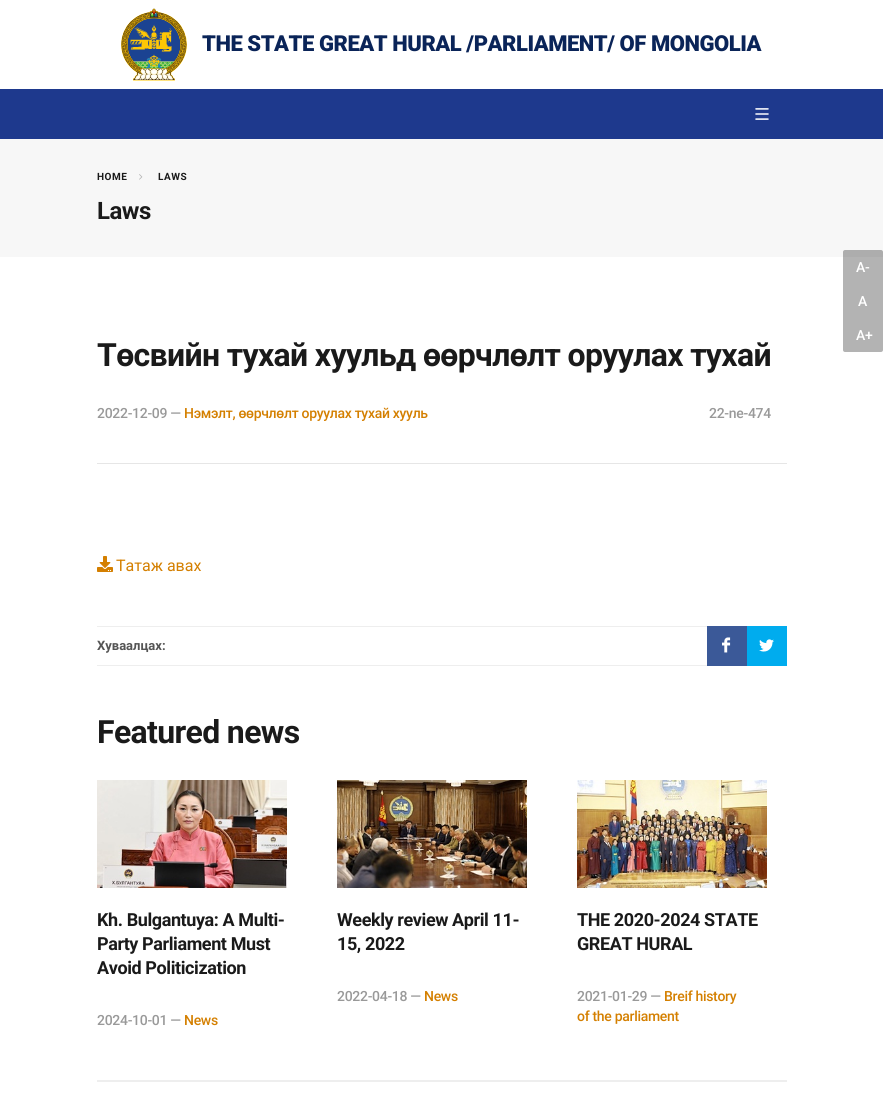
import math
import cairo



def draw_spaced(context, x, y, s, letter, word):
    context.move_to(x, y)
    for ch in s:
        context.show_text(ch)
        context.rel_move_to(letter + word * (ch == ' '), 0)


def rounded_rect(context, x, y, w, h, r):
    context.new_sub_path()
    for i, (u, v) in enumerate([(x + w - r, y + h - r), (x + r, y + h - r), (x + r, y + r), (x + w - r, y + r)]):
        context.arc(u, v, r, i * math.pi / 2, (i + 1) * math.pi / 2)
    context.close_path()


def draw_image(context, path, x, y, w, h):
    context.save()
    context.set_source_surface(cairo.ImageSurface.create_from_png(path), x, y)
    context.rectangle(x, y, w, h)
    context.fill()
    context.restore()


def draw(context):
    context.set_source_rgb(1, 1, 1)
    context.paint()
    draw_image(context, "images/1.png", 121, 8, 66, 73)
    context.set_source_rgb(30 / 255, 57 / 255, 141 / 255)
    context.rectangle(0, 89, 883, 50)
    context.fill()
    draw_image(context, "images/2.png", 755, 108, 14, 12)
    context.set_source_rgb(247 / 255, 247 / 255, 247 / 255)
    context.rectangle(0, 139, 883, 118)
    context.fill()
    draw_image(context, "images/3.png", 139, 174, 4, 6)
    context.set_source_rgb(230 / 255, 230 / 255, 230 / 255)
    context.rectangle(97, 463, 690, 1)
    context.fill()
    draw_image(context, "images/4.png", 97, 556, 16, 16)
    context.set_source_rgb(238 / 255, 238 / 255, 238 / 255)
    context.rectangle(97, 626, 610, 1)
    context.fill()
    context.rectangle(97, 665, 610, 1)
    context.fill()
    context.set_source_rgb(59 / 255, 89 / 255, 152 / 255)
    context.rectangle(707, 626, 40, 40)
    context.fill()
    draw_image(context, "images/5.png", 722, 637, 9, 16)
    context.set_source_rgb(0, 172 / 255, 238 / 255)
    context.rectangle(747, 626, 40, 40)
    context.fill()
    draw_image(context, "images/6.png", 759, 639, 15, 13)
    draw_image(context, "images/7.png", 97, 780, 190, 108)
    draw_image(context, "images/8.png", 337, 780, 190, 108)
    draw_image(context, "images/9.png", 577, 780, 190, 108)
    context.set_source_rgb(238 / 255, 238 / 255, 238 / 255)
    context.rectangle(97, 1080, 690, 2)
    context.fill()
    context.set_source_rgba(0, 0, 0, 0.3)
    rounded_rect(context, 843, 250, 40, 102, 2)
    context.fill()
    context.select_font_face("Roboto Black")
    context.set_font_size(22)
    context.set_source_rgb(10 / 255, 36 / 255, 88 / 255)
    draw_spaced(context, 202, 51, "THE STATE GREAT HURAL /PARLIAMENT/ OF MONGOLIA", -0.45, 0)
    context.select_font_face("Roboto", cairo.FontSlant.NORMAL, cairo.FontWeight.BOLD)
    context.set_font_size(10)
    context.set_source_rgb(26 / 255, 26 / 255, 26 / 255)
    draw_spaced(context, 97, 180, "HOME", 0.5, 0)
    draw_spaced(context, 158, 180, "LAWS", 0.5, 0)
    context.set_font_size(24)
    draw_spaced(context, 97, 219, "Laws", -0.5, 0)
    context.set_font_size(32)
    draw_spaced(context, 97, 366, "Төсвийн тухай хуульд өөрчлөлт оруулах тухай", -0.65, 0)
    context.select_font_face("Roboto Medium")
    context.set_font_size(14)
    context.set_source_rgb(153 / 255, 153 / 255, 153 / 255)
    draw_spaced(context, 97, 418, "2022-12-09 —", -0.3, 0)
    context.set_source_rgb(212 / 255, 127 / 255, 0)
    draw_spaced(context, 184, 418, "Нэмэлт, өөрчлөлт оруулах тухай хууль", -0.3, 0)
    context.set_source_rgb(153 / 255, 153 / 255, 153 / 255)
    draw_spaced(context, 709, 418, "22-ne-474", -0.3, 0)
    context.select_font_face("Roboto")
    context.set_font_size(16)
    context.set_source_rgb(212 / 255, 127 / 255, 0)
    context.move_to(116, 571)
    context.show_text("Татаж авах")
    context.select_font_face("Roboto", cairo.FontSlant.NORMAL, cairo.FontWeight.BOLD)
    context.set_font_size(13)
    context.set_source_rgb(85 / 255, 85 / 255, 85 / 255)
    context.move_to(97, 650)
    context.show_text("Хуваалцах:")
    context.set_font_size(32)
    context.set_source_rgb(26 / 255, 26 / 255, 26 / 255)
    draw_spaced(context, 97, 743, "Featured news", -0.65, 0)
    context.set_font_size(18)
    draw_spaced(context, 97, 926, "Kh. Bulgantuya: A Multi-", -0.4, 0)
    draw_spaced(context, 97, 950, "Party Parliament Must", -0.4, 0)
    draw_spaced(context, 97, 974, "Avoid Politicization", -0.4, 0)
    context.select_font_face("Roboto Medium")
    context.set_font_size(14)
    context.set_source_rgb(153 / 255, 153 / 255, 153 / 255)
    draw_spaced(context, 97, 1025, "2024-10-01 —", -0.3, 0)
    context.set_source_rgb(212 / 255, 127 / 255, 0)
    draw_spaced(context, 184, 1025, "News", -0.3, 0)
    context.select_font_face("Roboto", cairo.FontSlant.NORMAL, cairo.FontWeight.BOLD)
    context.set_font_size(18)
    context.set_source_rgb(26 / 255, 26 / 255, 26 / 255)
    draw_spaced(context, 337, 926, "Weekly review April 11-", -0.4, 0)
    draw_spaced(context, 337, 950, "15, 2022", -0.4, 0)
    context.select_font_face("Roboto Medium")
    context.set_font_size(14)
    context.set_source_rgb(153 / 255, 153 / 255, 153 / 255)
    draw_spaced(context, 337, 1001, "2022-04-18 —", -0.3, 0)
    context.set_source_rgb(212 / 255, 127 / 255, 0)
    draw_spaced(context, 424, 1001, "News", -0.3, 0)
    context.select_font_face("Roboto", cairo.FontSlant.NORMAL, cairo.FontWeight.BOLD)
    context.set_font_size(18)
    context.set_source_rgb(26 / 255, 26 / 255, 26 / 255)
    draw_spaced(context, 577, 926, "THE 2020-2024 STATE", -0.4, 0)
    draw_spaced(context, 577, 950, "GREAT HURAL", -0.4, 0)
    context.select_font_face("Roboto Medium")
    context.set_font_size(14)
    context.set_source_rgb(153 / 255, 153 / 255, 153 / 255)
    draw_spaced(context, 577, 1001, "2021-01-29 —", -0.3, 0)
    context.set_source_rgb(212 / 255, 127 / 255, 0)
    draw_spaced(context, 664, 1001, "Breif history", -0.3, 0)
    draw_spaced(context, 577, 1021, "of the parliament", -0.3, 0)
    context.set_source_rgb(1, 1, 1)
    draw_spaced(context, 856, 272, "A-", -0.3, 0)
    draw_spaced(context, 858, 306, "A", -0.3, 0)
    draw_spaced(context, 856, 340, "A+", -0.3, 0)


surface = cairo.ImageSurface(cairo.Format.RGB24, 883, 1109)
context = cairo.Context(surface)
options = cairo.FontOptions()
options.set_hint_metrics(cairo.HintMetrics.OFF)
options.set_hint_style(cairo.HintStyle.NONE)
context.set_font_options(options)
context.set_miter_limit(4)
draw(context)
surface.write_to_png("out.png")
